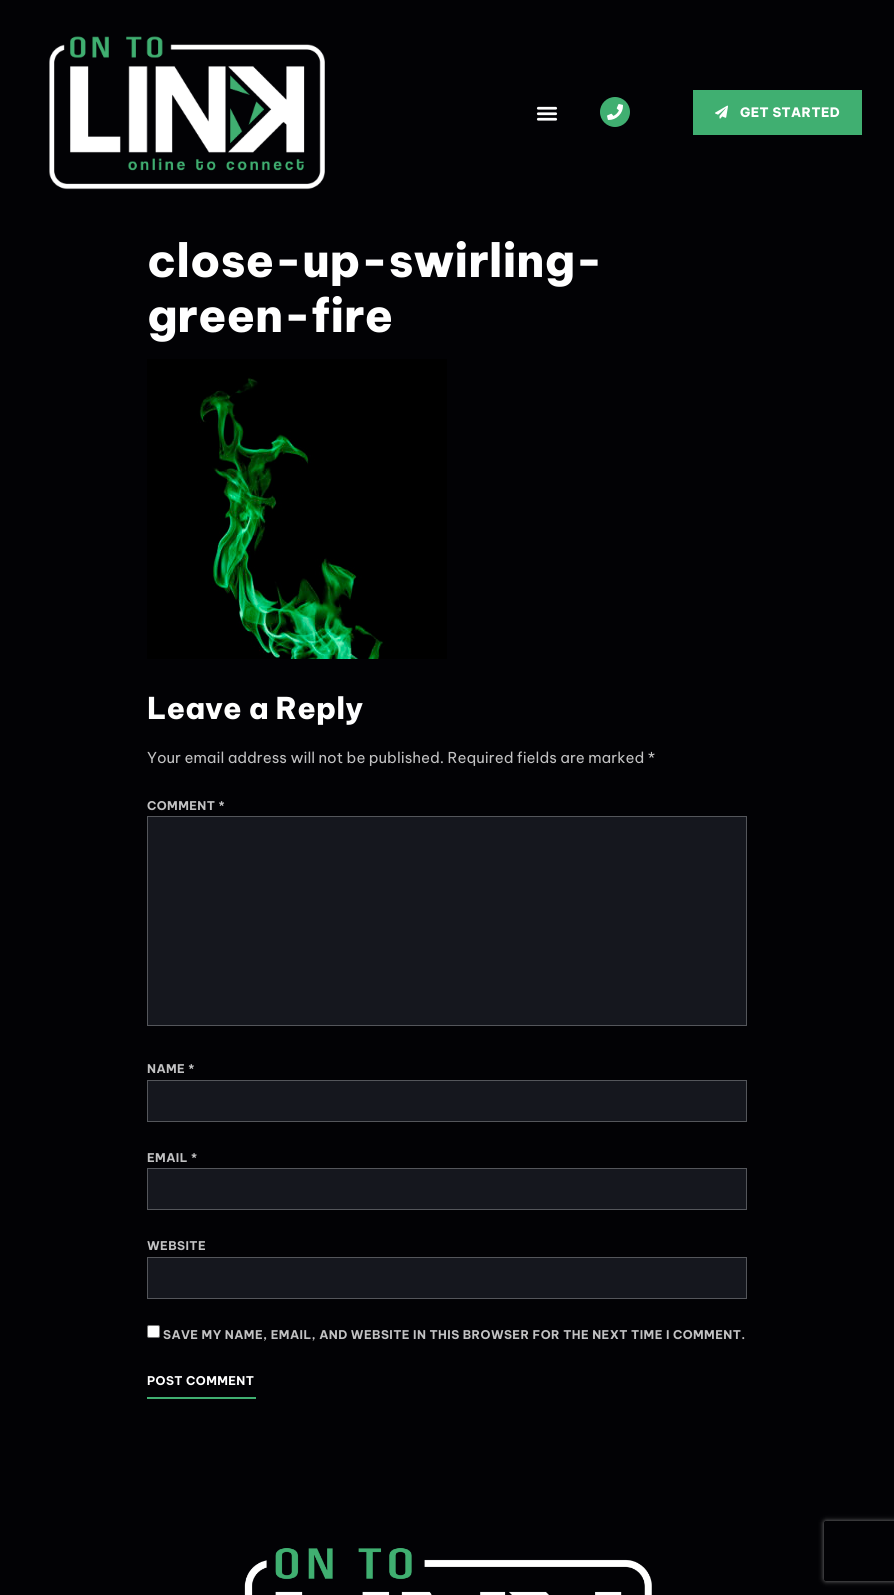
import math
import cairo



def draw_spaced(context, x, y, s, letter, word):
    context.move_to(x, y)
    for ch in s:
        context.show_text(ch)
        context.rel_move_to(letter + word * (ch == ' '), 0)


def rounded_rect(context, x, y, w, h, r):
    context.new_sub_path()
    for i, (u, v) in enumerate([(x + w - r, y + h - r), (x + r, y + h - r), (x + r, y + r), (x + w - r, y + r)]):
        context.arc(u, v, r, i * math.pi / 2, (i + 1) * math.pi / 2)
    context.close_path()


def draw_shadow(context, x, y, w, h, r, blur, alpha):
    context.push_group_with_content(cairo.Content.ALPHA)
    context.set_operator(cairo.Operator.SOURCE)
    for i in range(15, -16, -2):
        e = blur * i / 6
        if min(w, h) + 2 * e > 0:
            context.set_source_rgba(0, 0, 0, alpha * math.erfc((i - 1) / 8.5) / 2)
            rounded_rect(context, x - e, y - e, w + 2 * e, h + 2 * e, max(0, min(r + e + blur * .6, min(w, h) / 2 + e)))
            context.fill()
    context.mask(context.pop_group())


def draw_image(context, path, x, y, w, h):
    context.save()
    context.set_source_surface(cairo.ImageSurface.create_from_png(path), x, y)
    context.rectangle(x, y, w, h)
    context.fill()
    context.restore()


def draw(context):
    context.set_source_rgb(2 / 255, 2 / 255, 5 / 255)
    context.paint()
    draw_image(context, "images/1.png", 49, 36, 276, 154)
    draw_image(context, "images/2.png", 536, 106, 22, 15)
    context.set_source_rgb(64 / 255, 175 / 255, 113 / 255)
    context.arc(615, 112, 15, 0, 2 * math.pi)
    context.fill()
    draw_image(context, "images/3.png", 607, 104, 16, 16)
    context.rectangle(693, 90, 169, 45)
    context.fill()
    draw_image(context, "images/4.png", 715, 105, 13, 14)
    draw_image(context, "images/5.png", 147, 359, 300, 300)
    context.set_source_rgb(21 / 255, 23 / 255, 30 / 255)
    context.rectangle(147.5, 816.5, 599, 209)
    context.fill_preserve()
    context.set_source_rgb(84 / 255, 86 / 255, 91 / 255)
    context.set_line_width(1)
    context.stroke()
    context.set_source_rgb(21 / 255, 23 / 255, 30 / 255)
    context.rectangle(147.5, 1080.5, 599, 41)
    context.fill_preserve()
    context.set_source_rgb(84 / 255, 86 / 255, 91 / 255)
    context.stroke()
    context.set_source_rgb(21 / 255, 23 / 255, 30 / 255)
    context.rectangle(147.5, 1168.5, 599, 41)
    context.fill_preserve()
    context.set_source_rgb(84 / 255, 86 / 255, 91 / 255)
    context.stroke()
    context.set_source_rgb(21 / 255, 23 / 255, 30 / 255)
    context.rectangle(147.5, 1257.5, 599, 41)
    context.fill_preserve()
    context.set_source_rgb(84 / 255, 86 / 255, 91 / 255)
    context.stroke()
    context.set_source_rgb(1, 1, 1)
    rounded_rect(context, 147.5, 1325.5, 12, 12, 1.5)
    context.fill_preserve()
    context.set_source_rgb(118 / 255, 118 / 255, 118 / 255)
    context.stroke()
    context.set_source_rgb(64 / 255, 175 / 255, 113 / 255)
    context.rectangle(147, 1397, 109, 2)
    context.fill()
    draw_image(context, "images/6.png", 244, 1548, 408, 47)
    context.save()
    context.set_fill_rule(cairo.FillRule.EVEN_ODD)
    context.new_path()
    context.move_to(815, 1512)
    context.line_to(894, 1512)
    context.line_to(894, 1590)
    context.line_to(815, 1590)
    context.close_path()
    context.move_to(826, 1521)
    context.line_to(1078, 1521)
    context.curve_to(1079, 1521, 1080, 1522, 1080, 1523)
    context.line_to(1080, 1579)
    context.curve_to(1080, 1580, 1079, 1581, 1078, 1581)
    context.line_to(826, 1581)
    context.curve_to(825, 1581, 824, 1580, 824, 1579)
    context.line_to(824, 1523)
    context.curve_to(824, 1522, 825, 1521, 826, 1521)
    context.close_path()
    context.clip()
    context.set_source_rgb(128 / 255, 128 / 255, 128 / 255)
    draw_shadow(context, 824, 1521, 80, 60, 2, 2.5, 1)
    context.restore()
    context.select_font_face("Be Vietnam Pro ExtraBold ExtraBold")
    context.set_font_size(13)
    context.set_source_rgb(1, 1, 1)
    draw_spaced(context, 740, 117, "GET STARTED", 0.4, 0)
    context.set_font_size(46)
    context.move_to(147, 277)
    context.show_text("close-up-swirling-")
    context.move_to(147, 332)
    context.show_text("green-fire")
    context.set_font_size(30)
    context.move_to(147, 719)
    context.show_text("Leave a Reply")
    context.select_font_face("Be Vietnam Pro")
    context.set_font_size(15)
    context.set_source_rgb(194 / 255, 194 / 255, 195 / 255)
    context.move_to(147, 763)
    context.show_text("Your email address will not be published. Required fields are marked *")
    context.select_font_face("Be Vietnam Pro", cairo.FontSlant.NORMAL, cairo.FontWeight.BOLD)
    context.set_font_size(12)
    draw_spaced(context, 147, 810, "COMMENT *", 0.4, 0)
    draw_spaced(context, 147, 1073, "NAME *", 0.4, 0)
    draw_spaced(context, 147, 1162, "EMAIL *", 0.4, 0)
    draw_spaced(context, 147, 1250, "WEBSITE", 0.4, 0)
    draw_spaced(context, 163, 1339, "SAVE MY NAME, EMAIL, AND WEBSITE IN THIS BROWSER FOR THE NEXT TIME I COMMENT.", 0.4, 0)
    context.set_source_rgb(1, 1, 1)
    draw_spaced(context, 147, 1385, "POST COMMENT", 0.4, 0)


surface = cairo.ImageSurface(cairo.Format.RGB24, 894, 1595)
context = cairo.Context(surface)
options = cairo.FontOptions()
options.set_hint_metrics(cairo.HintMetrics.OFF)
options.set_hint_style(cairo.HintStyle.NONE)
context.set_font_options(options)
context.set_miter_limit(4)
draw(context)
surface.write_to_png("out.png")
